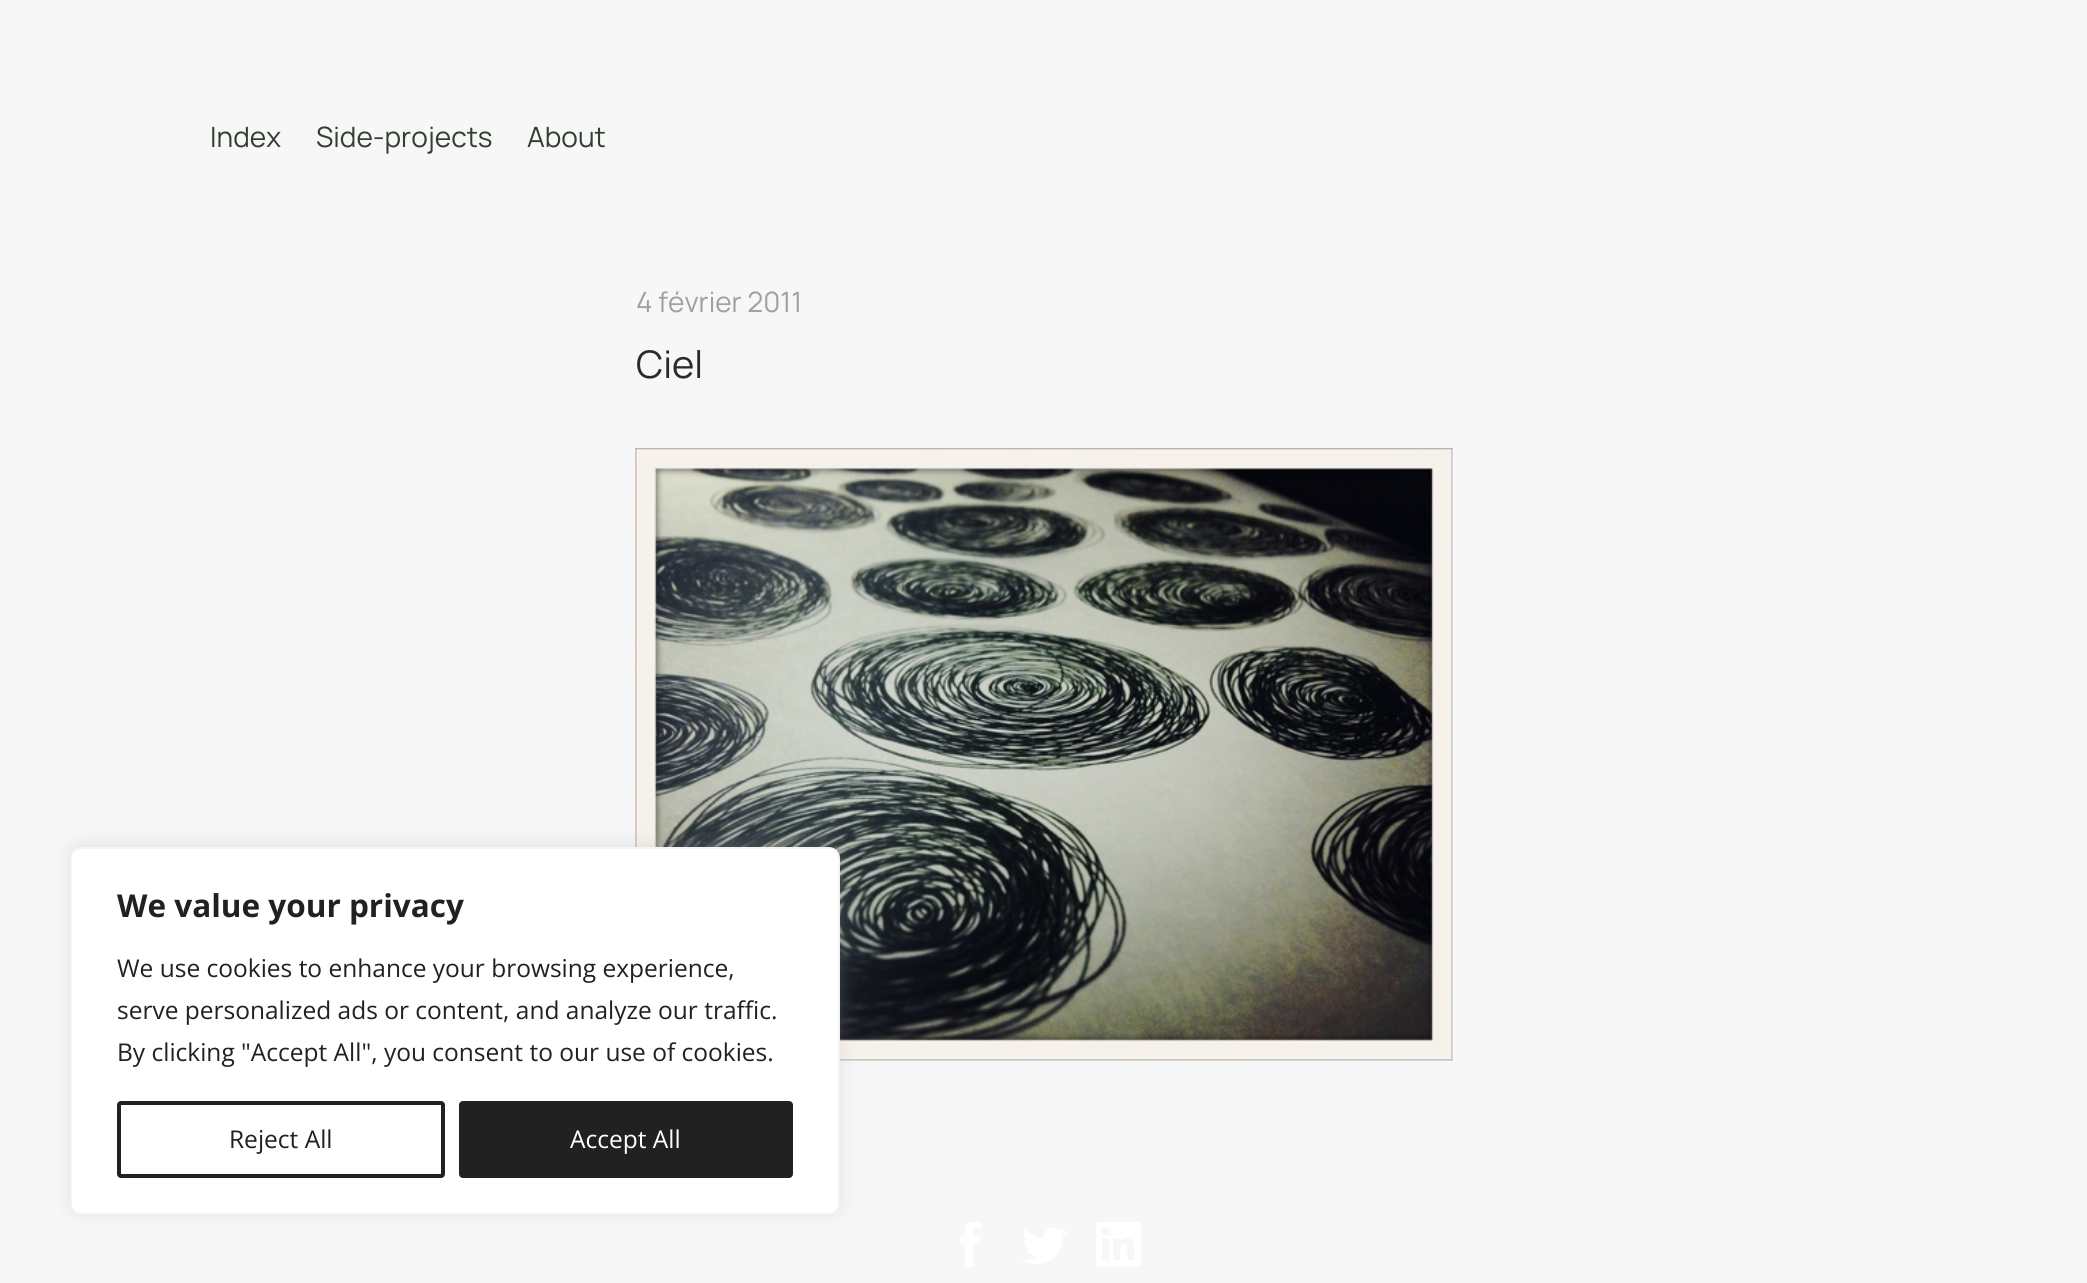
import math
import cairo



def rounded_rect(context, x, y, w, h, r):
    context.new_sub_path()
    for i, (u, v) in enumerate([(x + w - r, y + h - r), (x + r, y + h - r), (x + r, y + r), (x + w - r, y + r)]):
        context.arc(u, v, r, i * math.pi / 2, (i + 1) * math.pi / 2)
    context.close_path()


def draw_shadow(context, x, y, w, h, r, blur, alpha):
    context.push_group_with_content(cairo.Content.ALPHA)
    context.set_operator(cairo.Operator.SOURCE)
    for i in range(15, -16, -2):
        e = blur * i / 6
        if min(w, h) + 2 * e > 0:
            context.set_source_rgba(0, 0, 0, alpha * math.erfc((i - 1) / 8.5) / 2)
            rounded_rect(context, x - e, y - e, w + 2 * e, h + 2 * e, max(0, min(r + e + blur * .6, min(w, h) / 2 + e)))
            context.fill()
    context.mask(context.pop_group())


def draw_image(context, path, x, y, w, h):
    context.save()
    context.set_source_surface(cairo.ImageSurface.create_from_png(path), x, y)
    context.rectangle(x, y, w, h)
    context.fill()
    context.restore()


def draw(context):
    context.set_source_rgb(247 / 255, 247 / 255, 247 / 255)
    context.paint()
    draw_image(context, "images/1.png", 635, 448, 818, 613)
    draw_image(context, "images/2.png", 960, 1222, 22, 45)
    draw_image(context, "images/3.png", 1023, 1227, 44, 37)
    draw_image(context, "images/4.png", 1096, 1222, 45, 45)
    context.set_source_rgb(172 / 255, 171 / 255, 171 / 255)
    draw_shadow(context, 70, 845, 770, 368, 11, 9, 0.3)
    context.set_source_rgb(1, 1, 1)
    rounded_rect(context, 71, 848, 768, 366, 10)
    context.fill_preserve()
    context.set_source_rgb(244 / 255, 244 / 255, 244 / 255)
    context.stroke()
    rounded_rect(context, 119, 1103, 324, 73, 2)
    context.set_source_rgb(33 / 255, 33 / 255, 33 / 255)
    context.set_line_width(4)
    context.stroke()
    rounded_rect(context, 461, 1103, 330, 73, 2)
    context.fill_preserve()
    context.stroke()
    context.select_font_face("Manrope")
    context.set_font_size(28)
    context.set_source_rgb(49 / 255, 63 / 255, 48 / 255)
    context.move_to(210, 147)
    context.show_text("Index")
    context.move_to(316, 147)
    context.show_text("Side-projects")
    context.move_to(527, 147)
    context.show_text("About")
    context.set_source_rgb(160 / 255, 160 / 255, 160 / 255)
    context.move_to(636, 312)
    context.show_text("4 février 2011")
    context.set_font_size(38)
    context.set_source_rgb(41 / 255, 42 / 255, 44 / 255)
    context.move_to(636, 378)
    context.show_text("Ciel")
    context.select_font_face("Open Sans", cairo.FontSlant.NORMAL, cairo.FontWeight.BOLD)
    context.set_font_size(31.5)
    context.set_source_rgb(33 / 255, 33 / 255, 33 / 255)
    context.move_to(117, 917)
    context.show_text("We value your privacy")
    context.select_font_face("Open Sans")
    context.set_font_size(24.5)
    context.move_to(117, 977)
    context.show_text("We use cookies to enhance your browsing experience,")
    context.move_to(117, 1019)
    context.show_text("serve personalized ads or content, and analyze our traffic.")
    context.move_to(117, 1061)
    context.show_text("By clicking \"Accept All\", you consent to our use of cookies.")
    context.move_to(229, 1148)
    context.show_text("Reject All")
    context.set_source_rgb(1, 1, 1)
    context.move_to(570, 1148)
    context.show_text("Accept All")


surface = cairo.ImageSurface(cairo.Format.RGB24, 2087, 1283)
context = cairo.Context(surface)
options = cairo.FontOptions()
options.set_hint_metrics(cairo.HintMetrics.OFF)
options.set_hint_style(cairo.HintStyle.NONE)
context.set_font_options(options)
context.set_miter_limit(4)
draw(context)
surface.write_to_png("out.png")
